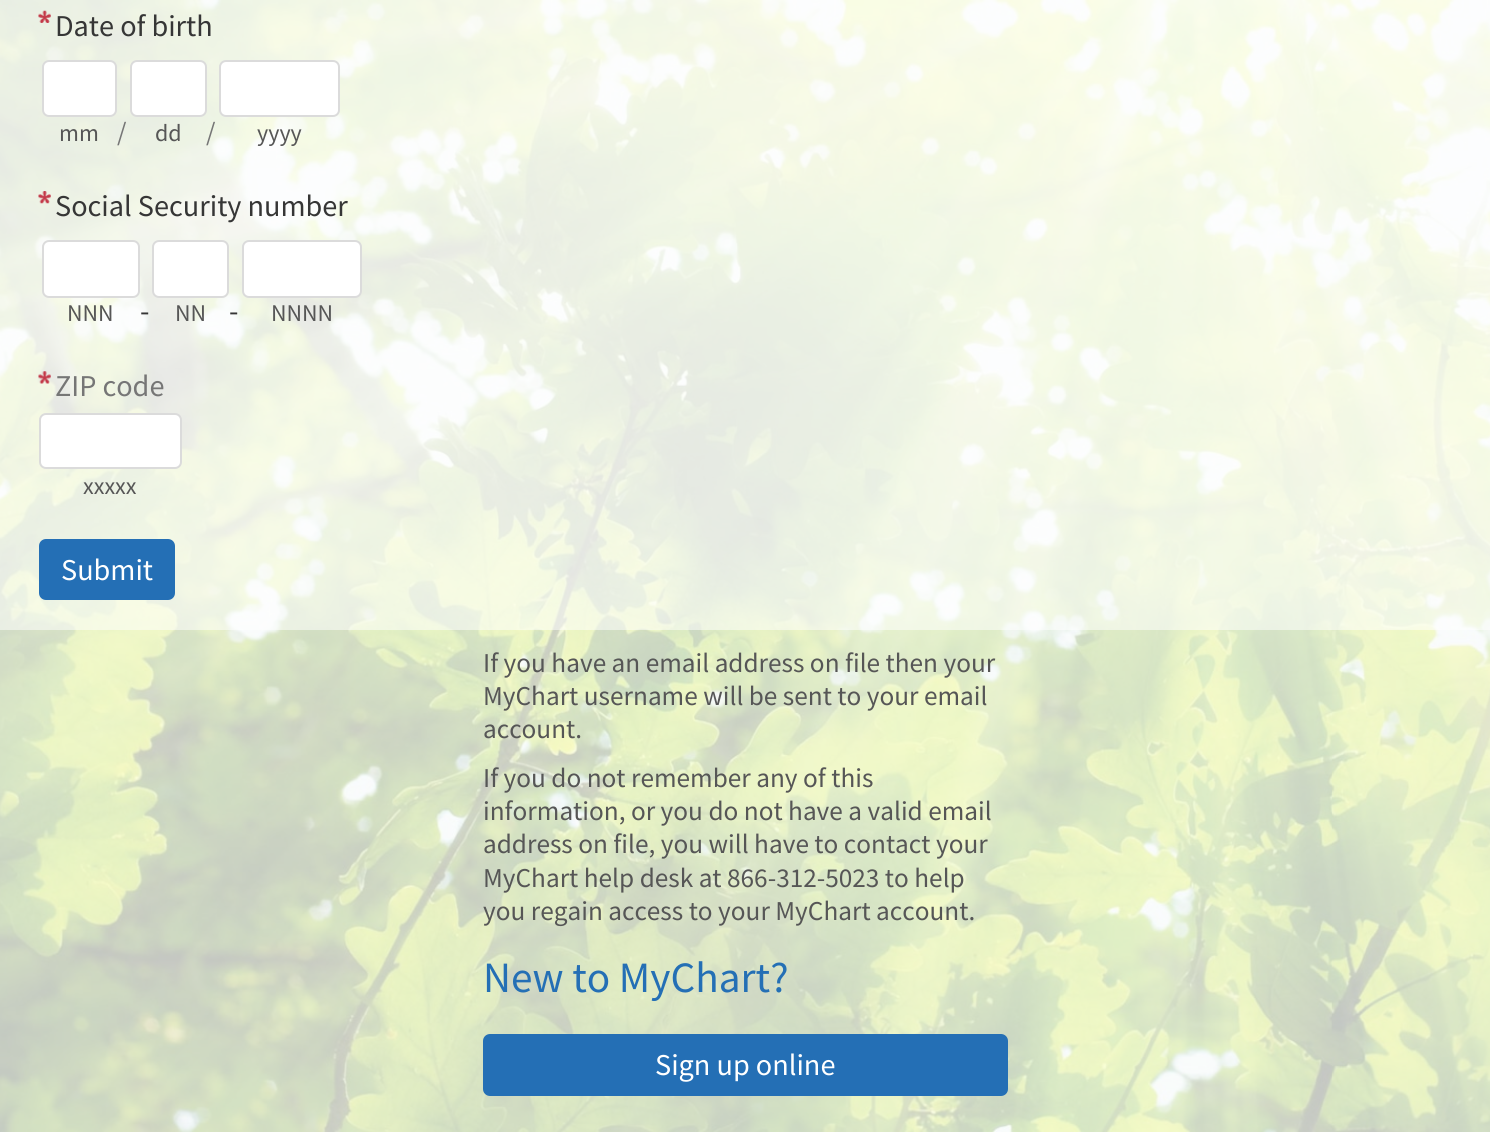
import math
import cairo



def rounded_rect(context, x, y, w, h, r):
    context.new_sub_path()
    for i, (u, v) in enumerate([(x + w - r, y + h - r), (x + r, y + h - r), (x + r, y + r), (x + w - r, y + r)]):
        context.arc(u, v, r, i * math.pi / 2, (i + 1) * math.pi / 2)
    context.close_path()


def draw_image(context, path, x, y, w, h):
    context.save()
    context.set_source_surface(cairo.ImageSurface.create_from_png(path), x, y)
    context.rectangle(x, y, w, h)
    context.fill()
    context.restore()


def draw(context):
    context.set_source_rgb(1, 1, 1)
    context.paint()
    draw_image(context, "images/1.png", 0, 0, 1490, 1132)
    context.set_source_rgba(1, 1, 1, 0.88)
    context.rectangle(0, 0, 1490, 630)
    context.fill()
    draw_image(context, "images/2.png", 38, 10, 13, 13)
    context.set_source_rgb(1, 1, 1)
    rounded_rect(context, 43, 61, 73, 55, 6)
    context.fill_preserve()
    context.set_source_rgb(219 / 255, 219 / 255, 219 / 255)
    context.stroke()
    context.set_source_rgb(1, 1, 1)
    rounded_rect(context, 131, 61, 75, 55, 6)
    context.fill_preserve()
    context.set_source_rgb(219 / 255, 219 / 255, 219 / 255)
    context.stroke()
    context.set_source_rgb(1, 1, 1)
    rounded_rect(context, 220, 61, 119, 55, 6)
    context.fill_preserve()
    context.set_source_rgb(219 / 255, 219 / 255, 219 / 255)
    context.stroke()
    draw_image(context, "images/3.png", 38, 191, 13, 13)
    context.set_source_rgb(1, 1, 1)
    rounded_rect(context, 43, 241, 96, 56, 6)
    context.fill_preserve()
    context.set_source_rgb(219 / 255, 219 / 255, 219 / 255)
    context.stroke()
    context.set_source_rgb(1, 1, 1)
    rounded_rect(context, 153, 241, 75, 56, 6)
    context.fill_preserve()
    context.set_source_rgb(219 / 255, 219 / 255, 219 / 255)
    context.stroke()
    context.set_source_rgb(1, 1, 1)
    rounded_rect(context, 243, 241, 118, 56, 6)
    context.fill_preserve()
    context.set_source_rgb(219 / 255, 219 / 255, 219 / 255)
    context.stroke()
    draw_image(context, "images/4.png", 38, 371, 13, 13)
    context.set_source_rgb(1, 1, 1)
    rounded_rect(context, 40, 414, 141, 54, 6)
    context.fill_preserve()
    context.set_source_rgb(219 / 255, 219 / 255, 219 / 255)
    context.stroke()
    context.set_source_rgb(36 / 255, 111 / 255, 181 / 255)
    rounded_rect(context, 39, 539, 136, 61, 7)
    context.fill()
    context.set_source_rgba(1, 1, 1, 0.75)
    context.rectangle(0, 630, 1490, 502)
    context.fill()
    context.set_source_rgb(36 / 255, 111 / 255, 181 / 255)
    rounded_rect(context, 483, 1034, 525, 62, 7)
    context.fill()
    context.select_font_face("Source Sans Pro")
    context.set_font_size(30.25)
    context.set_source_rgb(54 / 255, 54 / 255, 54 / 255)
    context.move_to(55, 36)
    context.show_text("Date of birth")
    context.set_font_size(24)
    context.set_source_rgb(86 / 255, 86 / 255, 86 / 255)
    context.move_to(59, 141)
    context.show_text("mm")
    context.set_font_size(27)
    context.set_source_rgb(118 / 255, 118 / 255, 118 / 255)
    context.move_to(117, 141)
    context.show_text("/")
    context.set_font_size(24)
    context.set_source_rgb(86 / 255, 86 / 255, 86 / 255)
    context.move_to(155, 141)
    context.show_text("dd")
    context.set_font_size(27)
    context.set_source_rgb(118 / 255, 118 / 255, 118 / 255)
    context.move_to(206, 141)
    context.show_text("/")
    context.set_font_size(24)
    context.set_source_rgb(86 / 255, 86 / 255, 86 / 255)
    context.move_to(257, 141)
    context.show_text("yyyy")
    context.set_font_size(30.25)
    context.set_source_rgb(54 / 255, 54 / 255, 54 / 255)
    context.move_to(55, 216)
    context.show_text("Social Security number")
    context.set_font_size(24)
    context.set_source_rgb(86 / 255, 86 / 255, 86 / 255)
    context.move_to(67, 321)
    context.show_text("NNN")
    context.set_font_size(30.25)
    context.set_source_rgb(54 / 255, 54 / 255, 54 / 255)
    context.move_to(140, 321)
    context.show_text("-")
    context.set_font_size(24)
    context.set_source_rgb(86 / 255, 86 / 255, 86 / 255)
    context.move_to(175, 321)
    context.show_text("NN")
    context.set_font_size(30.25)
    context.set_source_rgb(54 / 255, 54 / 255, 54 / 255)
    context.move_to(229, 321)
    context.show_text("-")
    context.set_font_size(24)
    context.set_source_rgb(86 / 255, 86 / 255, 86 / 255)
    context.move_to(271, 321)
    context.show_text("NNNN")
    context.set_font_size(30.25)
    context.set_source_rgb(118 / 255, 118 / 255, 118 / 255)
    context.move_to(55, 396)
    context.show_text("ZIP code")
    context.set_font_size(24)
    context.set_source_rgb(86 / 255, 86 / 255, 86 / 255)
    context.move_to(83, 494)
    context.show_text("xxxxx")
    context.set_font_size(30.25)
    context.set_source_rgb(1, 1, 1)
    context.move_to(61, 580)
    context.show_text("Submit")
    context.set_font_size(27.25)
    context.set_source_rgb(86 / 255, 86 / 255, 86 / 255)
    context.move_to(483, 672)
    context.show_text("If you have an email address on file then your")
    context.move_to(483, 705)
    context.show_text("MyChart username will be sent to your email")
    context.move_to(483, 738)
    context.show_text("account.")
    context.move_to(483, 787)
    context.show_text("If you do not remember any of this")
    context.move_to(483, 820)
    context.show_text("information, or you do not have a valid email")
    context.move_to(483, 853)
    context.show_text("address on file, you will have to contact your")
    context.move_to(483, 887)
    context.show_text("MyChart help desk at 866-312-5023 to help")
    context.move_to(483, 920)
    context.show_text("you regain access to your MyChart account.")
    context.set_font_size(43.25)
    context.set_source_rgb(36 / 255, 111 / 255, 181 / 255)
    context.move_to(483, 992)
    context.show_text("New to MyChart?")
    context.set_font_size(30.25)
    context.set_source_rgb(1, 1, 1)
    context.move_to(655, 1075)
    context.show_text("Sign up online")


surface = cairo.ImageSurface(cairo.Format.RGB24, 1490, 1132)
context = cairo.Context(surface)
options = cairo.FontOptions()
options.set_hint_metrics(cairo.HintMetrics.OFF)
options.set_hint_style(cairo.HintStyle.NONE)
context.set_font_options(options)
context.set_miter_limit(4)
draw(context)
surface.write_to_png("out.png")
